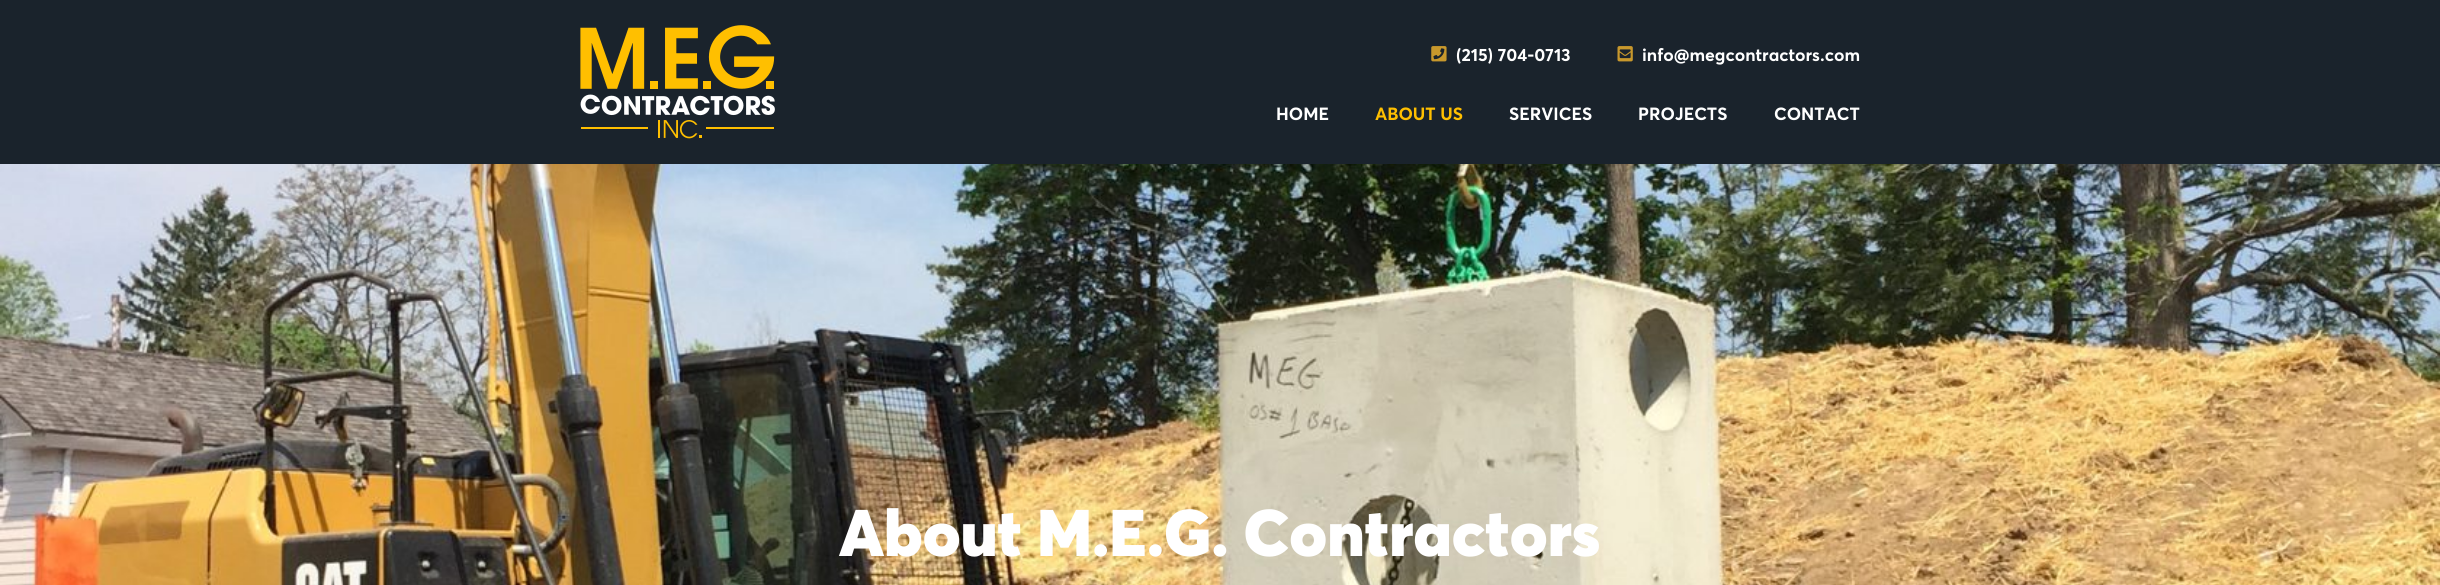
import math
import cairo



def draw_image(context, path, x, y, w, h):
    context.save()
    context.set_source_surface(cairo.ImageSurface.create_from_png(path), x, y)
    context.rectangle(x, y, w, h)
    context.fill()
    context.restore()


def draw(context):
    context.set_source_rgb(1, 1, 1)
    context.paint()
    context.set_source_rgb(26 / 255, 35 / 255, 44 / 255)
    context.rectangle(0, 0, 2440, 164)
    context.fill()
    draw_image(context, "images/1.png", 580, 25, 195, 114)
    draw_image(context, "images/2.png", 1431, 46, 16, 16)
    draw_image(context, "images/3.png", 1617, 46, 16, 16)
    draw_image(context, "images/4.png", 0, 164, 2440, 421)
    context.select_font_face("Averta", cairo.FontSlant.NORMAL, cairo.FontWeight.BOLD)
    context.set_font_size(17.5)
    context.set_source_rgb(1, 1, 1)
    context.move_to(1456, 61)
    context.show_text("(215) 704-0713")
    context.move_to(1642, 61)
    context.show_text("info@megcontractors.com")
    context.move_to(1276, 120)
    context.show_text("HOME")
    context.set_source_rgb(1, 191 / 255, 0)
    context.move_to(1375, 120)
    context.show_text("ABOUT US")
    context.set_source_rgb(1, 1, 1)
    context.move_to(1509, 120)
    context.show_text("SERVICES")
    context.move_to(1638, 120)
    context.show_text("PROJECTS")
    context.move_to(1774, 120)
    context.show_text("CONTACT")
    context.select_font_face("Averta Black")
    context.set_font_size(65)
    context.move_to(839, 556)
    context.show_text("About M.E.G. Contractors")


surface = cairo.ImageSurface(cairo.Format.RGB24, 2440, 585)
context = cairo.Context(surface)
options = cairo.FontOptions()
options.set_hint_metrics(cairo.HintMetrics.OFF)
options.set_hint_style(cairo.HintStyle.NONE)
context.set_font_options(options)
context.set_miter_limit(4)
draw(context)
surface.write_to_png("out.png")
